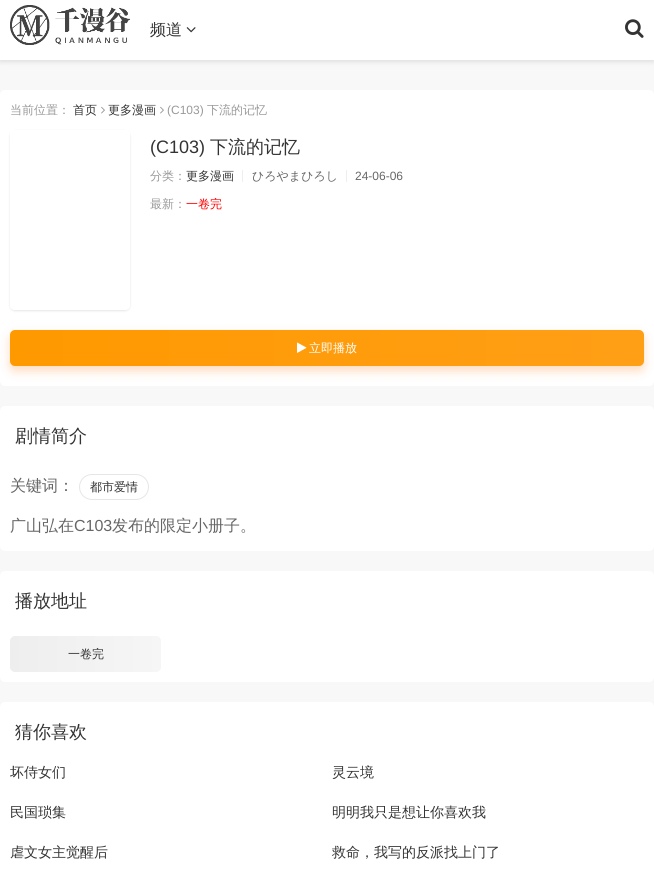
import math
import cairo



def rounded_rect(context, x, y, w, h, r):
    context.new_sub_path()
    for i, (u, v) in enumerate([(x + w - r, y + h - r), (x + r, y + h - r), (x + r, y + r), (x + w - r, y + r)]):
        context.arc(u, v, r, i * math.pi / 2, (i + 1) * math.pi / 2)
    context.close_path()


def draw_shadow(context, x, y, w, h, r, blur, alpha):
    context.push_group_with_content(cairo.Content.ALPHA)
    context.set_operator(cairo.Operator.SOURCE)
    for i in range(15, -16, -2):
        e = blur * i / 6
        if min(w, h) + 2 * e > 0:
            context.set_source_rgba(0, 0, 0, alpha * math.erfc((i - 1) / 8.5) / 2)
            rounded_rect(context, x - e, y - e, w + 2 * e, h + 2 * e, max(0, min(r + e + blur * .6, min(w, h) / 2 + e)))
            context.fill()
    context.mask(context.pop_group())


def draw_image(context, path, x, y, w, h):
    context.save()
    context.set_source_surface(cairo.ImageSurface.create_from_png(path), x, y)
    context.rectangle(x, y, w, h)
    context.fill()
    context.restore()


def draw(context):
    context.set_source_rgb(248 / 255, 248 / 255, 248 / 255)
    context.paint()
    context.set_source_rgb(0, 0, 0)
    draw_shadow(context, 0, 2, 654, 60, 0, 2.5, 0.1)
    context.set_source_rgb(1, 1, 1)
    context.rectangle(0, 0, 654, 60)
    context.fill()
    draw_image(context, "images/1.png", 10, 5, 120, 40)
    draw_image(context, "images/2.png", 186, 27, 10, 6)
    draw_image(context, "images/3.png", 625, 19, 19, 19)
    rounded_rect(context, 0, 90, 654, 296, 5)
    context.fill()
    draw_image(context, "images/4.png", 101, 106, 4, 8)
    draw_image(context, "images/4.png", 160, 106, 4, 8)
    context.save()
    context.set_fill_rule(cairo.FillRule.EVEN_ODD)
    context.new_path()
    context.move_to(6, 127)
    context.line_to(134, 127)
    context.line_to(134, 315)
    context.line_to(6, 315)
    context.close_path()
    context.move_to(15, 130)
    context.line_to(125, 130)
    context.curve_to(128, 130, 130, 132, 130, 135)
    context.line_to(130, 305)
    context.curve_to(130, 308, 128, 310, 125, 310)
    context.line_to(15, 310)
    context.curve_to(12, 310, 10, 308, 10, 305)
    context.line_to(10, 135)
    context.curve_to(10, 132, 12, 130, 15, 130)
    context.close_path()
    context.clip()
    context.set_source_rgb(0, 0, 0)
    draw_shadow(context, 10, 131, 120, 180, 5, 1, 0.1)
    context.restore()
    context.set_source_rgb(238 / 255, 238 / 255, 238 / 255)
    context.rectangle(242, 170, 1, 12)
    context.fill()
    context.rectangle(346, 170, 1, 12)
    context.fill()
    context.set_source_rgb(1, 111 / 255, 0)
    draw_shadow(context, 10, 335, 634, 36, 5, 5, 0.25)
    gradient = cairo.LinearGradient(10, 348, 644, 348)
    gradient.add_color_stop_rgba(0, 1, 153 / 255, 0, 1)
    gradient.add_color_stop_rgba(1, 1, 159 / 255, 22 / 255, 1)
    context.set_source(gradient)
    rounded_rect(context, 10, 330, 634, 36, 5)
    context.fill()
    draw_image(context, "images/5.png", 297, 342, 10, 11)
    context.set_source_rgb(1, 1, 1)
    rounded_rect(context, 0, 406, 654, 145, 5)
    context.fill()
    rounded_rect(context, 79.5, 474.5, 69, 25, 12.5)
    context.set_source_rgb(230 / 255, 230 / 255, 230 / 255)
    context.set_line_width(1)
    context.stroke()
    context.set_source_rgb(1, 1, 1)
    rounded_rect(context, 0, 571, 654, 111, 5)
    context.fill()
    gradient = cairo.LinearGradient(10, 654, 161, 654)
    gradient.add_color_stop_rgba(0, 238 / 255, 238 / 255, 238 / 255, 1)
    gradient.add_color_stop_rgba(1, 246 / 255, 246 / 255, 246 / 255, 1)
    context.set_source(gradient)
    rounded_rect(context, 10, 636, 151, 36, 5)
    context.fill()
    context.set_source_rgb(1, 1, 1)
    rounded_rect(context, 0, 702, 654, 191, 5)
    context.fill()
    context.select_font_face("WenQuanYi Zen Hei Medium")
    context.set_font_size(16)
    context.set_source_rgb(51 / 255, 51 / 255, 51 / 255)
    context.move_to(150, 35)
    context.show_text("频道")
    context.set_font_size(12)
    context.set_source_rgb(153 / 255, 153 / 255, 153 / 255)
    context.move_to(10, 114)
    context.show_text("当前位置：")
    context.set_source_rgb(51 / 255, 51 / 255, 51 / 255)
    context.move_to(73, 114)
    context.show_text("首页")
    context.move_to(108, 114)
    context.show_text("更多漫画")
    context.select_font_face("Liberation Sans")
    context.set_source_rgb(153 / 255, 153 / 255, 153 / 255)
    context.move_to(167, 114)
    context.show_text("(C103)")
    context.select_font_face("WenQuanYi Zen Hei Medium")
    context.move_to(207, 114)
    context.show_text("下流的记忆")
    context.select_font_face("Liberation Sans")
    context.set_font_size(18)
    context.set_source_rgb(51 / 255, 51 / 255, 51 / 255)
    context.move_to(150, 153)
    context.show_text("(C103)")
    context.select_font_face("WenQuanYi Zen Hei Medium")
    context.move_to(210, 153)
    context.show_text("下流的记忆")
    context.set_font_size(12)
    context.set_source_rgb(153 / 255, 153 / 255, 153 / 255)
    context.move_to(150, 180)
    context.show_text("分类：")
    context.set_source_rgb(51 / 255, 51 / 255, 51 / 255)
    context.move_to(186, 180)
    context.show_text("更多漫画")
    context.set_source_rgb(102 / 255, 102 / 255, 102 / 255)
    context.move_to(252, 180)
    context.show_text("ひろやまひろし")
    context.select_font_face("Liberation Sans")
    context.move_to(355, 180)
    context.show_text("24-06-06")
    context.select_font_face("WenQuanYi Zen Hei Medium")
    context.set_source_rgb(153 / 255, 153 / 255, 153 / 255)
    context.move_to(150, 208)
    context.show_text("最新：")
    context.set_source_rgb(1, 0, 0)
    context.move_to(186, 208)
    context.show_text("一卷完")
    context.set_source_rgb(1, 1, 1)
    context.move_to(309, 352)
    context.show_text("立即播放")
    context.set_font_size(18)
    context.set_source_rgb(51 / 255, 51 / 255, 51 / 255)
    context.move_to(15, 442)
    context.show_text("剧情简介")
    context.set_font_size(16)
    context.set_source_rgb(102 / 255, 102 / 255, 102 / 255)
    context.move_to(10, 491)
    context.show_text("关键词：")
    context.set_font_size(12)
    context.set_source_rgb(51 / 255, 51 / 255, 51 / 255)
    context.move_to(90, 491)
    context.show_text("都市爱情")
    context.set_font_size(16)
    context.set_source_rgb(102 / 255, 102 / 255, 102 / 255)
    context.move_to(10, 531)
    context.show_text("广山弘在")
    context.select_font_face("Liberation Sans")
    context.move_to(74, 531)
    context.show_text("C103")
    context.select_font_face("WenQuanYi Zen Hei Medium")
    context.move_to(112, 531)
    context.show_text("发布的限定小册子。")
    context.set_font_size(18)
    context.set_source_rgb(51 / 255, 51 / 255, 51 / 255)
    context.move_to(15, 607)
    context.show_text("播放地址")
    context.set_font_size(12)
    context.move_to(68, 658)
    context.show_text("一卷完")
    context.set_font_size(18)
    context.move_to(15, 738)
    context.show_text("猜你喜欢")
    context.set_font_size(14)
    context.move_to(10, 777)
    context.show_text("坏侍女们")
    context.move_to(332, 777)
    context.show_text("灵云境")
    context.move_to(10, 817)
    context.show_text("民国琐集")
    context.move_to(332, 817)
    context.show_text("明明我只是想让你喜欢我")
    context.move_to(10, 857)
    context.show_text("虐文女主觉醒后")
    context.move_to(332, 857)
    context.show_text("救命，我写的反派找上门了")


surface = cairo.ImageSurface(cairo.Format.RGB24, 654, 888)
context = cairo.Context(surface)
options = cairo.FontOptions()
options.set_hint_metrics(cairo.HintMetrics.OFF)
options.set_hint_style(cairo.HintStyle.NONE)
context.set_font_options(options)
context.set_miter_limit(4)
draw(context)
surface.write_to_png("out.png")
